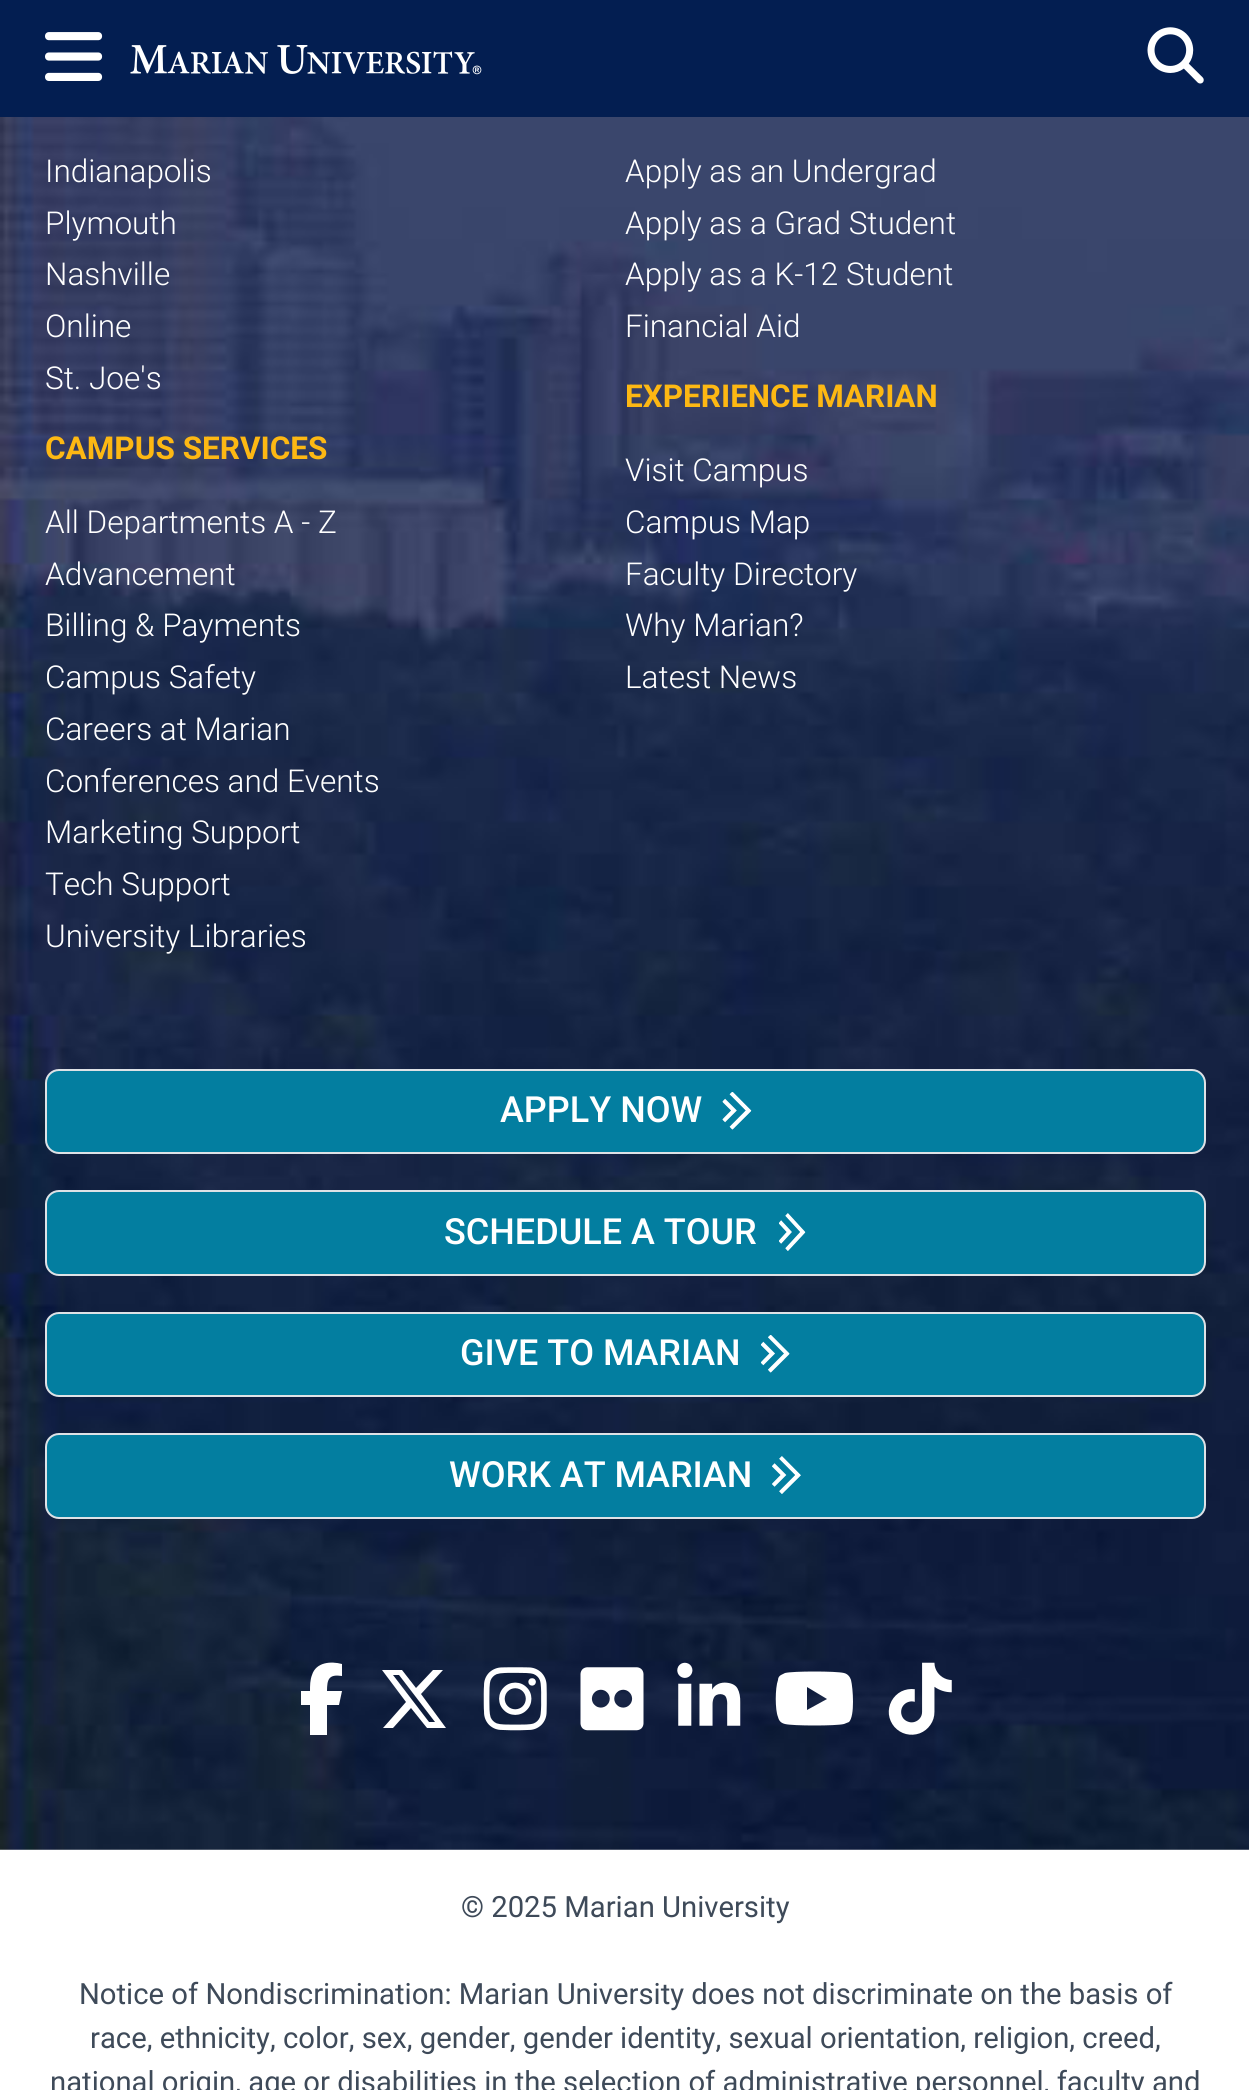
import math
import cairo



def rounded_rect(context, x, y, w, h, r):
    context.new_sub_path()
    for i, (u, v) in enumerate([(x + w - r, y + h - r), (x + r, y + h - r), (x + r, y + r), (x + w - r, y + r)]):
        context.arc(u, v, r, i * math.pi / 2, (i + 1) * math.pi / 2)
    context.close_path()


def draw_image(context, path, x, y, w, h):
    context.save()
    context.set_source_surface(cairo.ImageSurface.create_from_png(path), x, y)
    context.rectangle(x, y, w, h)
    context.fill()
    context.restore()


def draw(context):
    context.set_source_rgb(1, 1, 1)
    context.paint()
    context.set_source_rgb(3 / 255, 30 / 255, 81 / 255)
    context.rectangle(0, 0, 1249, 117)
    context.fill()
    draw_image(context, "images/1.png", 45, 32, 58, 49)
    draw_image(context, "images/2.png", 130, 45, 352, 30)
    draw_image(context, "images/3.png", 1147, 27, 57, 57)
    draw_image(context, "images/4.png", 0, 117, 1249, 1733)
    context.set_source_rgb(3 / 255, 126 / 255, 160 / 255)
    rounded_rect(context, 46, 1070, 1159, 83, 13)
    context.fill_preserve()
    context.set_source_rgb(222 / 255, 226 / 255, 230 / 255)
    context.stroke()
    draw_image(context, "images/5.png", 722, 1092, 30, 38)
    context.set_source_rgb(3 / 255, 126 / 255, 160 / 255)
    rounded_rect(context, 46, 1191, 1159, 84, 13)
    context.fill_preserve()
    context.set_source_rgb(222 / 255, 226 / 255, 230 / 255)
    context.stroke()
    draw_image(context, "images/6.png", 779, 1213, 27, 38)
    context.set_source_rgb(3 / 255, 126 / 255, 160 / 255)
    rounded_rect(context, 46, 1313, 1159, 83, 13)
    context.fill_preserve()
    context.set_source_rgb(222 / 255, 226 / 255, 230 / 255)
    context.stroke()
    draw_image(context, "images/7.png", 761, 1335, 29, 38)
    context.set_source_rgb(3 / 255, 126 / 255, 160 / 255)
    rounded_rect(context, 46, 1434, 1159, 84, 13)
    context.fill_preserve()
    context.set_source_rgb(222 / 255, 226 / 255, 230 / 255)
    context.stroke()
    draw_image(context, "images/8.png", 772, 1456, 29, 38)
    context.set_source_rgb(1, 1, 1)
    context.new_path()
    context.move_to(310, 1705)
    context.line_to(310, 1735)
    context.line_to(310, 1705)
    context.line_to(310, 1735)
    context.line_to(327, 1735)
    context.line_to(327, 1705)
    context.line_to(339, 1705)
    context.line_to(342, 1691)
    context.line_to(327, 1691)
    context.curve_to(327, 1679, 329, 1674, 342, 1676)
    context.line_to(342, 1664)
    context.curve_to(331, 1661, 316, 1662, 312, 1675)
    context.curve_to(310, 1680, 310, 1686, 310, 1691)
    context.line_to(301, 1691)
    context.line_to(301, 1705)
    context.close_path()
    context.fill()
    context.new_path()
    context.move_to(433, 1670)
    context.line_to(443, 1670)
    context.line_to(433, 1670)
    context.line_to(443, 1670)
    context.line_to(421, 1694)
    context.line_to(446, 1728)
    context.line_to(427, 1728)
    context.line_to(411, 1708)
    context.line_to(393, 1728)
    context.line_to(383, 1728)
    context.line_to(406, 1702)
    context.line_to(382, 1670)
    context.line_to(402, 1670)
    context.line_to(416, 1688)
    context.close_path()
    context.move_to(429, 1722)
    context.line_to(435, 1722)
    context.line_to(429, 1722)
    context.line_to(435, 1722)
    context.line_to(399, 1675)
    context.line_to(393, 1675)
    context.close_path()
    context.fill()
    draw_image(context, "images/9.png", 483, 1667, 64, 64)
    draw_image(context, "images/10.png", 580, 1667, 64, 64)
    draw_image(context, "images/11.png", 677, 1662, 64, 64)
    context.new_path()
    context.move_to(851, 1680)
    context.curve_to(850, 1677, 848, 1674, 844, 1673)
    context.curve_to(836, 1671, 793, 1671, 785, 1673)
    context.line_to(781, 1675)
    context.curve_to(779, 1676, 778, 1678, 778, 1680)
    context.curve_to(775, 1688, 775, 1710, 778, 1717)
    context.curve_to(779, 1721, 781, 1723, 785, 1724)
    context.curve_to(793, 1726, 836, 1726, 844, 1724)
    context.line_to(849, 1722)
    context.curve_to(855, 1716, 853, 1688, 851, 1680)
    context.close_path()
    context.move_to(807, 1710)
    context.line_to(807, 1687)
    context.line_to(807, 1710)
    context.line_to(807, 1687)
    context.line_to(827, 1699)
    context.close_path()
    context.fill()
    draw_image(context, "images/12.png", 888, 1662, 64, 73)
    context.select_font_face("Roboto Light")
    context.set_font_size(31.5)
    context.move_to(45, 182)
    context.show_text("Indianapolis")
    context.move_to(45, 234)
    context.show_text("Plymouth")
    context.move_to(45, 285)
    context.show_text("Nashville")
    context.move_to(45, 337)
    context.show_text("Online")
    context.move_to(45, 389)
    context.show_text("St. Joe's")
    context.select_font_face("Roboto", cairo.FontSlant.NORMAL, cairo.FontWeight.BOLD)
    context.set_source_rgb(253 / 255, 184 / 255, 19 / 255)
    context.move_to(45, 459)
    context.show_text("CAMPUS SERVICES")
    context.select_font_face("Roboto Light")
    context.set_source_rgb(1, 1, 1)
    context.move_to(45, 533)
    context.show_text("All Departments A - Z")
    context.move_to(45, 585)
    context.show_text("Advancement")
    context.move_to(45, 636)
    context.show_text("Billing & Payments")
    context.move_to(45, 688)
    context.show_text("Campus Safety")
    context.move_to(45, 740)
    context.show_text("Careers at Marian")
    context.move_to(45, 792)
    context.show_text("Conferences and Events")
    context.move_to(45, 843)
    context.show_text("Marketing Support")
    context.move_to(45, 895)
    context.show_text("Tech Support")
    context.move_to(45, 947)
    context.show_text("University Libraries")
    context.move_to(625, 182)
    context.show_text("Apply as an Undergrad")
    context.move_to(625, 234)
    context.show_text("Apply as a Grad Student")
    context.move_to(625, 285)
    context.show_text("Apply as a K-12 Student")
    context.move_to(625, 337)
    context.show_text("Financial Aid")
    context.select_font_face("Roboto", cairo.FontSlant.NORMAL, cairo.FontWeight.BOLD)
    context.set_source_rgb(253 / 255, 184 / 255, 19 / 255)
    context.move_to(625, 407)
    context.show_text("EXPERIENCE MARIAN")
    context.select_font_face("Roboto Light")
    context.set_source_rgb(1, 1, 1)
    context.move_to(625, 481)
    context.show_text("Visit Campus")
    context.move_to(625, 533)
    context.show_text("Campus Map")
    context.move_to(625, 585)
    context.show_text("Faculty Directory")
    context.move_to(625, 636)
    context.show_text("Why Marian?")
    context.move_to(625, 688)
    context.show_text("Latest News")
    context.select_font_face("Roboto Medium")
    context.set_font_size(36)
    context.move_to(500, 1122)
    context.show_text("APPLY NOW")
    context.move_to(444, 1244)
    context.show_text("SCHEDULE A TOUR")
    context.move_to(460, 1365)
    context.show_text("GIVE TO MARIAN")
    context.move_to(449, 1487)
    context.show_text("WORK AT MARIAN")
    context.select_font_face("Roboto")
    context.set_font_size(29.25)
    context.set_source_rgb(62 / 255, 74 / 255, 89 / 255)
    context.move_to(461, 1917)
    context.show_text("© 2025 Marian University")
    context.move_to(79, 2004)
    context.show_text("Notice of Nondiscrimination: Marian University does not discriminate on the basis of")
    context.move_to(90, 2048)
    context.show_text("race, ethnicity, color, sex, gender, gender identity, sexual orientation, religion, creed,")
    context.move_to(50, 2092)
    context.show_text("national origin, age or disabilities in the selection of administrative personnel, faculty and")


surface = cairo.ImageSurface(cairo.Format.RGB24, 1249, 2090)
context = cairo.Context(surface)
options = cairo.FontOptions()
options.set_hint_metrics(cairo.HintMetrics.OFF)
options.set_hint_style(cairo.HintStyle.NONE)
context.set_font_options(options)
context.set_miter_limit(4)
draw(context)
surface.write_to_png("out.png")
